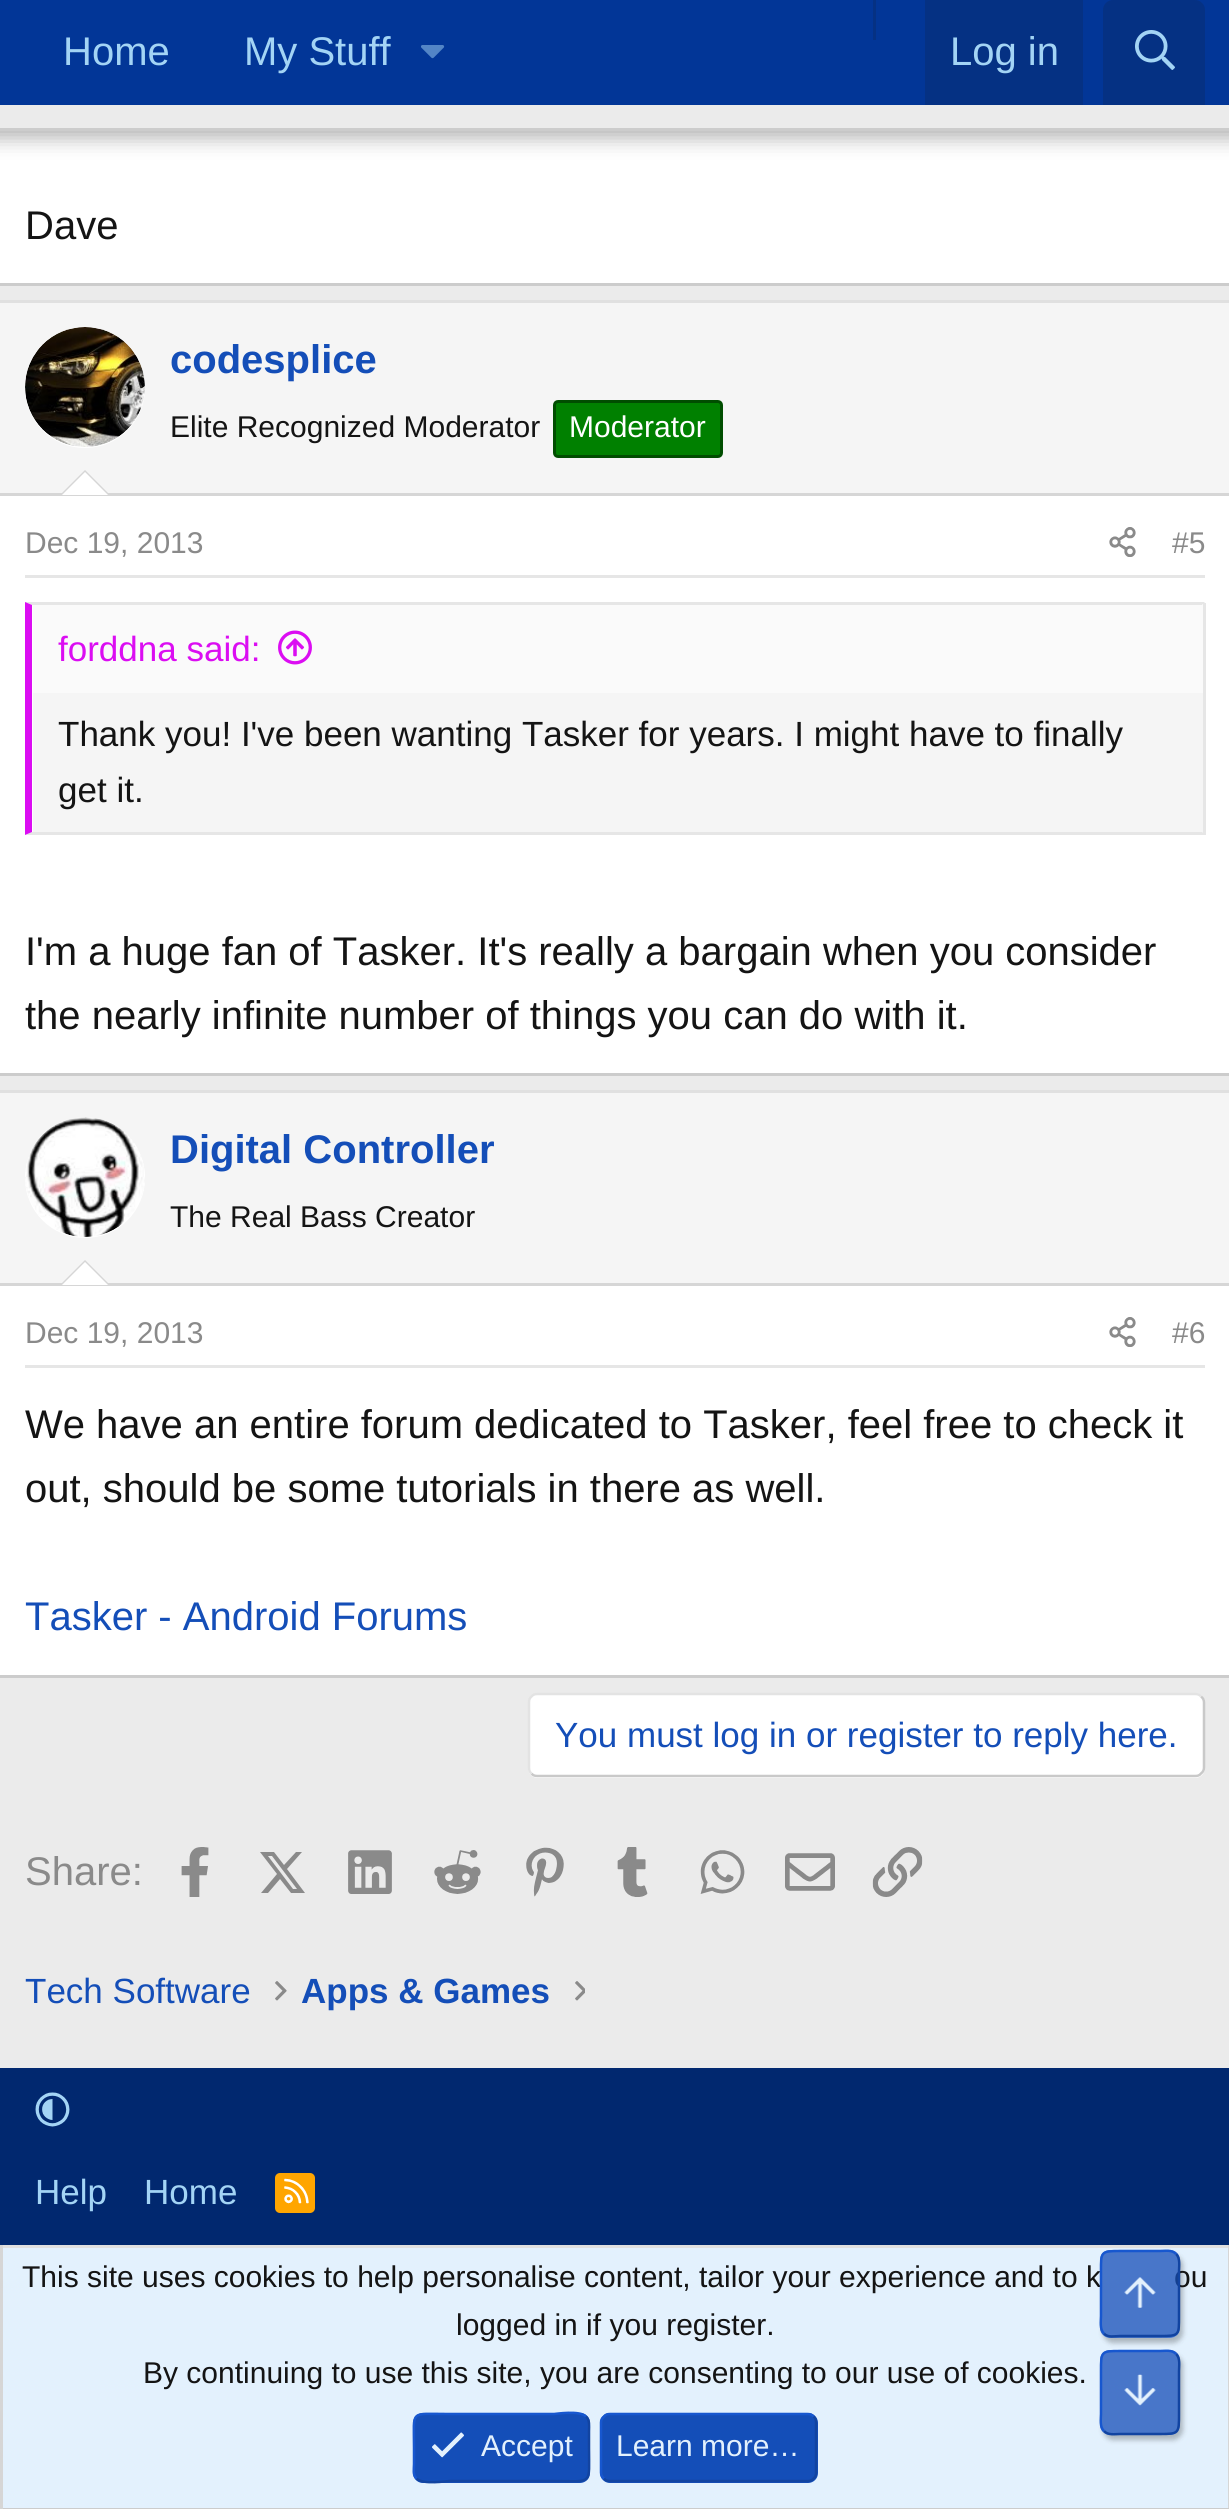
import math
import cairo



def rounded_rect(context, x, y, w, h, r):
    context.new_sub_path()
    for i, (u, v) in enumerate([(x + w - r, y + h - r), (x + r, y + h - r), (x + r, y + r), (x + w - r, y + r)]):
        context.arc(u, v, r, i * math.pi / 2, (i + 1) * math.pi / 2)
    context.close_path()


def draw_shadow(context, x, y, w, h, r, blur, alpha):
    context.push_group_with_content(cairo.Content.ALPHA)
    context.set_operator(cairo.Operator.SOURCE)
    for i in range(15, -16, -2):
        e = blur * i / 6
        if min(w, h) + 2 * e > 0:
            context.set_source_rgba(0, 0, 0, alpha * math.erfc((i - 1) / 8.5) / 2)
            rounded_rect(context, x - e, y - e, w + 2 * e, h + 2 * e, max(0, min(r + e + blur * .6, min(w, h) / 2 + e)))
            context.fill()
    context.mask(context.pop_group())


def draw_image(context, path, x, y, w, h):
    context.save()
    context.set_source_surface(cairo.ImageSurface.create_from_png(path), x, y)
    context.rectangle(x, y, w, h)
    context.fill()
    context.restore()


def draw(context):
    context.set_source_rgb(235 / 255, 235 / 255, 235 / 255)
    context.paint()
    context.set_source_rgb(1, 1, 1)
    context.rectangle(0, 131, 1229, 152)
    context.fill()
    context.set_source_rgb(0, 0, 0)
    draw_shadow(context, -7, -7, 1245, 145, 0, 10, 0.3)
    context.set_source_rgb(2 / 255, 54 / 255, 151 / 255)
    context.rectangle(0, 0, 1229, 105)
    context.fill()
    draw_image(context, "images/1.png", 421, 45, 24, 14)
    context.set_source_rgb(5 / 255, 49 / 255, 131 / 255)
    context.rectangle(873, 0, 3, 40)
    context.fill()
    context.rectangle(925, 0, 158, 105)
    context.fill()
    context.new_path()
    context.move_to(1113, 0)
    context.line_to(1195, 0)
    context.curve_to(1200.5, 0, 1205, 4.5, 1205, 10)
    context.line_to(1205, 105)
    context.line_to(1103, 105)
    context.line_to(1103, 10)
    context.curve_to(1103, 4.5, 1107.5, 0, 1113, 0)
    context.close_path()
    context.fill()
    draw_image(context, "images/2.png", 1135, 30, 40, 40)
    context.set_source_rgb(235 / 255, 235 / 255, 235 / 255)
    context.rectangle(0, 105, 1229, 23)
    context.fill()
    context.set_source_rgb(204 / 255, 204 / 255, 204 / 255)
    context.rectangle(0, 128, 1229, 3)
    context.fill()
    context.rectangle(0, 283, 1229, 3)
    context.fill()
    context.set_source_rgb(1, 1, 1)
    context.rectangle(0, 496, 1229, 577)
    context.fill()
    context.set_source_rgb(224 / 255, 224 / 255, 224 / 255)
    context.rectangle(0, 300, 1229, 3)
    context.fill()
    context.set_source_rgb(204 / 255, 204 / 255, 204 / 255)
    context.rectangle(0, 1073, 1229, 3)
    context.fill()
    context.set_source_rgb(245 / 255, 245 / 255, 245 / 255)
    context.rectangle(0, 303, 1229, 190)
    context.fill()
    context.set_source_rgb(214 / 255, 214 / 255, 214 / 255)
    context.rectangle(0, 493, 1229, 3)
    context.fill()
    context.set_source_rgb(1, 1, 1)
    context.arc(85, 388, 60, 0, 2 * math.pi)
    context.fill()
    draw_image(context, "images/3.png", 25, 327, 120, 120)
    context.set_source_rgb(0, 128 / 255, 0)
    rounded_rect(context, 554.5, 401.5, 167, 55, 3.5)
    context.fill_preserve()
    context.set_source_rgb(0, 77 / 255, 0)
    context.set_line_width(3)
    context.stroke()
    context.set_source_rgb(214 / 255, 214 / 255, 214 / 255)
    context.new_path()
    context.move_to(110, 495)
    context.line_to(60, 495)
    context.line_to(85, 470)
    context.close_path()
    context.fill()
    context.set_source_rgb(1, 1, 1)
    context.new_path()
    context.move_to(108, 495)
    context.line_to(62, 495)
    context.line_to(85, 472)
    context.close_path()
    context.fill()
    context.set_source_rgb(230 / 255, 230 / 255, 230 / 255)
    context.rectangle(25, 575, 1180, 3)
    context.fill()
    draw_image(context, "images/4.png", 1109, 527, 27, 30)
    context.set_source_rgb(245 / 255, 245 / 255, 245 / 255)
    context.rectangle(33, 693, 1170, 140)
    context.fill()
    context.set_source_rgb(230 / 255, 230 / 255, 230 / 255)
    context.new_path()
    context.move_to(25, 602)
    context.line_to(1205, 602)
    context.line_to(1202, 605)
    context.line_to(32, 605)
    context.close_path()
    context.fill()
    context.rectangle(1203, 603, 3, 232)
    context.fill()
    context.new_path()
    context.move_to(1205, 835)
    context.line_to(25, 835)
    context.line_to(32, 832)
    context.line_to(1202, 832)
    context.close_path()
    context.fill()
    context.set_source_rgb(219 / 255, 13 / 255, 242 / 255)
    context.new_path()
    context.move_to(25, 835)
    context.line_to(25, 602)
    context.line_to(32, 605)
    context.line_to(32, 832)
    context.close_path()
    context.fill()
    context.set_source_rgb(250 / 255, 250 / 255, 250 / 255)
    context.rectangle(33, 605, 1170, 88)
    context.fill()
    draw_image(context, "images/5.png", 278, 630, 34, 35)
    context.set_source_rgb(1, 1, 1)
    context.rectangle(0, 1286, 1229, 389)
    context.fill()
    context.set_source_rgb(224 / 255, 224 / 255, 224 / 255)
    context.rectangle(0, 1090, 1229, 3)
    context.fill()
    context.set_source_rgb(204 / 255, 204 / 255, 204 / 255)
    context.rectangle(0, 1675, 1229, 3)
    context.fill()
    context.set_source_rgb(245 / 255, 245 / 255, 245 / 255)
    context.rectangle(0, 1093, 1229, 190)
    context.fill()
    context.set_source_rgb(214 / 255, 214 / 255, 214 / 255)
    context.rectangle(0, 1283, 1229, 3)
    context.fill()
    context.set_source_rgb(1, 1, 1)
    context.arc(85, 1178, 60, 0, 2 * math.pi)
    context.fill()
    draw_image(context, "images/6.png", 25, 1117, 120, 120)
    context.set_source_rgb(214 / 255, 214 / 255, 214 / 255)
    context.new_path()
    context.move_to(110, 1285)
    context.line_to(60, 1285)
    context.line_to(85, 1260)
    context.close_path()
    context.fill()
    context.set_source_rgb(1, 1, 1)
    context.new_path()
    context.move_to(108, 1285)
    context.line_to(62, 1285)
    context.line_to(85, 1262)
    context.close_path()
    context.fill()
    context.set_source_rgb(230 / 255, 230 / 255, 230 / 255)
    context.rectangle(25, 1365, 1180, 3)
    context.fill()
    draw_image(context, "images/4.png", 1109, 1317, 27, 30)
    context.set_source_rgb(1, 1, 1)
    rounded_rect(context, 528, 1693, 677, 85, 10)
    context.fill()
    context.new_path()
    context.move_to(1201, 1696.5)
    context.curve_to(1203, 1698, 1204, 1700, 1204, 1702.5)
    context.line_to(1204, 1767.5)
    context.curve_to(1204, 1770, 1203, 1772, 1201, 1773.5)
    context.curve_to(1199.5, 1775.5, 1197.5, 1776, 1195, 1776)
    context.line_to(537.5, 1776)
    context.curve_to(535, 1776, 533, 1775.5, 531.5, 1773.5)
    context.set_source_rgb(201 / 255, 201 / 255, 201 / 255)
    context.set_line_width(2.5)
    context.stroke()
    context.new_path()
    context.move_to(531.5, 1773.5)
    context.curve_to(529.5, 1772, 529, 1770, 529, 1767.5)
    context.line_to(529, 1702.5)
    context.curve_to(529, 1700, 529.5, 1698, 531.5, 1696.5)
    context.curve_to(533, 1694.5, 535, 1694, 537.5, 1694)
    context.line_to(1195, 1694)
    context.curve_to(1197.5, 1694, 1199.5, 1694.5, 1201, 1696.5)
    context.set_source_rgb(227 / 255, 227 / 255, 227 / 255)
    context.stroke()
    draw_image(context, "images/7.png", 181, 1847, 28, 50)
    context.set_source_rgb(138 / 255, 138 / 255, 138 / 255)
    context.new_path()
    context.move_to(296, 1852)
    context.line_to(302, 1852)
    context.line_to(287, 1869)
    context.line_to(305, 1893)
    context.line_to(291, 1893)
    context.line_to(280, 1879)
    context.line_to(268, 1893)
    context.line_to(261, 1893)
    context.line_to(277, 1874)
    context.line_to(260, 1852)
    context.line_to(274, 1852)
    context.line_to(284, 1865)
    context.close_path()
    context.move_to(293, 1889)
    context.line_to(297, 1889)
    context.line_to(272, 1856)
    context.line_to(268, 1856)
    context.close_path()
    context.fill()
    draw_image(context, "images/8.png", 348, 1850, 44, 44)
    draw_image(context, "images/9.png", 434, 1850, 47, 44)
    draw_image(context, "images/10.png", 526, 1847, 38, 50)
    draw_image(context, "images/11.png", 617, 1847, 31, 50)
    draw_image(context, "images/12.png", 700, 1850, 45, 44)
    draw_image(context, "images/13.png", 785, 1853, 50, 38)
    draw_image(context, "images/14.png", 872, 1847, 51, 50)
    draw_image(context, "images/15.png", 275, 1981, 12, 20)
    draw_image(context, "images/16.png", 575, 1981, 10, 20)
    context.set_source_rgb(1 / 255, 40 / 255, 111 / 255)
    context.rectangle(0, 2068, 1229, 177)
    context.fill()
    draw_image(context, "images/17.png", 35, 2092, 35, 35)
    context.set_source_rgb(1, 165 / 255, 0)
    rounded_rect(context, 275, 2173, 40, 40, 5)
    context.fill()
    draw_image(context, "images/18.png", 284, 2178, 25, 26)
    context.set_source_rgb(227 / 255, 241 / 255, 253 / 255)
    context.rectangle(3, 2248, 1225, 260)
    context.fill()
    context.set_source_rgb(224 / 255, 224 / 255, 224 / 255)
    context.rectangle(0, 2245, 1229, 3)
    context.fill()
    context.save()
    context.set_fill_rule(cairo.FillRule.EVEN_ODD)
    context.new_path()
    context.move_to(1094, 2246)
    context.line_to(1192, 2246)
    context.line_to(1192, 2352)
    context.line_to(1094, 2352)
    context.close_path()
    context.move_to(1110, 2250)
    context.line_to(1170, 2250)
    context.curve_to(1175.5, 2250, 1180, 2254.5, 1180, 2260)
    context.line_to(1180, 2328)
    context.curve_to(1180, 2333.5, 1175.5, 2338, 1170, 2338)
    context.line_to(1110, 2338)
    context.curve_to(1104.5, 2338, 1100, 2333.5, 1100, 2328)
    context.line_to(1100, 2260)
    context.curve_to(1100, 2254.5, 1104.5, 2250, 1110, 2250)
    context.close_path()
    context.clip()
    context.set_source_rgb(0, 0, 0)
    draw_shadow(context, 1103, 2255, 80, 88, 10, 2.5, 0.25)
    context.restore()
    context.save()
    context.set_fill_rule(cairo.FillRule.EVEN_ODD)
    context.new_path()
    context.move_to(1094, 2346)
    context.line_to(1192, 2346)
    context.line_to(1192, 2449)
    context.line_to(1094, 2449)
    context.close_path()
    context.move_to(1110, 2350)
    context.line_to(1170, 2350)
    context.curve_to(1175.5, 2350, 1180, 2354.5, 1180, 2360)
    context.line_to(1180, 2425)
    context.curve_to(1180, 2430.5, 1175.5, 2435, 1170, 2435)
    context.line_to(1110, 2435)
    context.curve_to(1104.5, 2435, 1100, 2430.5, 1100, 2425)
    context.line_to(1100, 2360)
    context.curve_to(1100, 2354.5, 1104.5, 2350, 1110, 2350)
    context.close_path()
    context.clip()
    context.set_source_rgb(0, 0, 0)
    draw_shadow(context, 1103, 2355, 80, 85, 10, 2.5, 0.25)
    context.restore()
    context.set_source_rgba(20 / 255, 78 / 255, 184 / 255, 0.75)
    rounded_rect(context, 1100, 2350, 80, 85, 10)
    context.fill()
    context.new_path()
    context.move_to(1176, 2354)
    context.curve_to(1180.5, 2358, 1179, 2366, 1179, 2371)
    context.line_to(1179, 2414)
    context.curve_to(1179, 2433.5, 1179, 2434, 1160, 2434)
    context.line_to(1120, 2434)
    context.curve_to(1115, 2434, 1108, 2435.5, 1104, 2431)
    context.set_source_rgb(18 / 255, 68 / 255, 161 / 255)
    context.stroke()
    context.new_path()
    context.move_to(1104, 2431)
    context.curve_to(1099.5, 2427, 1101, 2419, 1101, 2414)
    context.line_to(1101, 2371)
    context.curve_to(1101, 2351.5, 1101, 2351, 1120, 2351)
    context.line_to(1160, 2351)
    context.curve_to(1165, 2351, 1172, 2349.5, 1176, 2354)
    context.set_source_rgb(23 / 255, 87 / 255, 207 / 255)
    context.stroke()
    draw_image(context, "images/20.png", 1124, 2374, 32, 32)
    context.set_source_rgb(214 / 255, 214 / 255, 214 / 255)
    context.rectangle(1228, 2245, 1, 264)
    context.fill()
    context.set_source_rgb(204 / 255, 204 / 255, 204 / 255)
    context.rectangle(0, 2508, 1229, 1)
    context.fill()
    context.set_source_rgb(214 / 255, 214 / 255, 214 / 255)
    context.rectangle(0, 2245, 3, 264)
    context.fill()
    context.set_source_rgb(20 / 255, 78 / 255, 184 / 255)
    rounded_rect(context, 413, 2413, 177, 70, 10)
    context.fill()
    context.new_path()
    context.move_to(586, 2416.5)
    context.curve_to(590, 2420, 589, 2426, 589, 2431)
    context.line_to(589, 2447.5)
    context.curve_to(589, 2486, 593.5, 2481, 554, 2481)
    context.line_to(449, 2481)
    context.curve_to(447.5, 2481, 422.5, 2485, 416.5, 2478.5)
    context.set_source_rgb(18 / 255, 68 / 255, 161 / 255)
    context.stroke()
    context.new_path()
    context.move_to(416.5, 2478.5)
    context.curve_to(412.5, 2475, 414, 2469, 414, 2464)
    context.line_to(414, 2447.5)
    context.curve_to(414, 2409, 409, 2414, 449, 2414)
    context.line_to(554, 2414)
    context.curve_to(555, 2414, 580, 2410, 586, 2416.5)
    context.set_source_rgb(23 / 255, 87 / 255, 207 / 255)
    context.stroke()
    draw_image(context, "images/21.png", 432, 2432, 32, 26)
    context.set_source_rgb(20 / 255, 78 / 255, 184 / 255)
    rounded_rect(context, 600, 2413, 218, 70, 10)
    context.fill()
    context.new_path()
    context.move_to(813.5, 2416.5)
    context.curve_to(815.5, 2418, 816, 2420, 816, 2422.5)
    context.line_to(816, 2472.5)
    context.curve_to(816, 2475, 815.5, 2477, 813.5, 2478.5)
    context.curve_to(812, 2480.5, 810, 2481, 807.5, 2481)
    context.line_to(610, 2481)
    context.curve_to(607.5, 2481, 605.5, 2480.5, 604, 2478.5)
    context.set_source_rgb(18 / 255, 68 / 255, 161 / 255)
    context.stroke()
    context.new_path()
    context.move_to(604, 2478.5)
    context.curve_to(602, 2477, 601, 2475, 601, 2472.5)
    context.line_to(601, 2422.5)
    context.curve_to(601, 2420, 602, 2418, 604, 2416.5)
    context.curve_to(605.5, 2414.5, 607.5, 2414, 610, 2414)
    context.line_to(807.5, 2414)
    context.curve_to(810, 2414, 812, 2414.5, 813.5, 2416.5)
    context.set_source_rgb(23 / 255, 87 / 255, 207 / 255)
    context.stroke()
    context.select_font_face("Liberation Sans")
    context.set_font_size(40)
    context.set_source_rgb(163 / 255, 212 / 255, 245 / 255)
    context.move_to(63, 65)
    context.show_text("Home")
    context.move_to(244, 65)
    context.show_text("My Stuff")
    context.move_to(950, 65)
    context.show_text("Log in")
    context.set_source_rgb(20 / 255, 20 / 255, 20 / 255)
    context.move_to(25, 239)
    context.show_text("Dave")
    context.select_font_face("Liberation Sans", cairo.FontSlant.NORMAL, cairo.FontWeight.BOLD)
    context.set_source_rgb(20 / 255, 78 / 255, 184 / 255)
    context.move_to(170, 373)
    context.show_text("codesplice")
    context.select_font_face("Liberation Sans")
    context.set_font_size(30)
    context.set_source_rgb(20 / 255, 20 / 255, 20 / 255)
    context.move_to(170, 437)
    context.show_text("Elite Recognized Moderator")
    context.set_source_rgb(1, 1, 1)
    context.move_to(569, 437)
    context.show_text("Moderator")
    context.set_source_rgb(138 / 255, 138 / 255, 138 / 255)
    context.move_to(25, 553)
    context.show_text("Dec 19, 2013")
    context.move_to(1172, 553)
    context.show_text("#5")
    context.set_font_size(35)
    context.set_source_rgb(219 / 255, 13 / 255, 242 / 255)
    context.move_to(58, 661)
    context.show_text("forddna said:")
    context.set_source_rgb(20 / 255, 20 / 255, 20 / 255)
    context.move_to(58, 746)
    context.show_text("Thank you! I've been wanting Tasker for years. I might have to finally")
    context.move_to(58, 802)
    context.show_text("get it.")
    context.set_font_size(40)
    context.move_to(25, 965)
    context.show_text("I'm a huge fan of Tasker. It's really a bargain when you consider")
    context.move_to(25, 1029)
    context.show_text("the nearly infinite number of things you can do with it.")
    context.select_font_face("Liberation Sans", cairo.FontSlant.NORMAL, cairo.FontWeight.BOLD)
    context.set_source_rgb(20 / 255, 78 / 255, 184 / 255)
    context.move_to(170, 1163)
    context.show_text("Digital Controller")
    context.select_font_face("Liberation Sans")
    context.set_font_size(30)
    context.set_source_rgb(20 / 255, 20 / 255, 20 / 255)
    context.move_to(170, 1227)
    context.show_text("The Real Bass Creator")
    context.set_source_rgb(138 / 255, 138 / 255, 138 / 255)
    context.move_to(25, 1343)
    context.show_text("Dec 19, 2013")
    context.move_to(1172, 1343)
    context.show_text("#6")
    context.set_font_size(40)
    context.set_source_rgb(20 / 255, 20 / 255, 20 / 255)
    context.move_to(25, 1438)
    context.show_text("We have an entire forum dedicated to Tasker, feel free to check it")
    context.move_to(25, 1502)
    context.show_text("out, should be some tutorials in there as well.")
    context.set_source_rgb(20 / 255, 78 / 255, 184 / 255)
    context.move_to(25, 1630)
    context.show_text("Tasker - Android Forums")
    context.set_font_size(35)
    context.move_to(555, 1747)
    context.show_text("You must log in or register to reply here.")
    context.set_font_size(40)
    context.set_source_rgb(138 / 255, 138 / 255, 138 / 255)
    context.move_to(25, 1885)
    context.show_text("Share:")
    context.set_font_size(35)
    context.set_source_rgb(20 / 255, 78 / 255, 184 / 255)
    context.move_to(25, 2003)
    context.show_text("Tech Software")
    context.select_font_face("Liberation Sans", cairo.FontSlant.NORMAL, cairo.FontWeight.BOLD)
    context.move_to(301, 2003)
    context.show_text("Apps & Games")
    context.select_font_face("Liberation Sans")
    context.set_source_rgb(163 / 255, 212 / 255, 245 / 255)
    context.move_to(35, 2204)
    context.show_text("Help")
    context.move_to(144, 2204)
    context.show_text("Home")
    context.set_font_size(30)
    context.set_source_rgb(20 / 255, 20 / 255, 20 / 255)
    context.move_to(22, 2287)
    context.show_text("This site uses cookies to help personalise content, tailor your experience and to k")
    context.move_to(1174, 2287)
    context.show_text("ou")
    context.set_source_rgba(20 / 255, 78 / 255, 184 / 255, 0.75)
    rounded_rect(context, 1100, 2250, 80, 88, 10)
    context.fill()
    context.new_path()
    context.move_to(1176, 2254)
    context.curve_to(1180.5, 2258, 1179, 2266.5, 1179, 2271)
    context.line_to(1179, 2316)
    context.curve_to(1179, 2335.5, 1179.5, 2336, 1160, 2336)
    context.line_to(1120, 2336)
    context.curve_to(1115, 2336, 1108, 2338, 1104, 2333.5)
    context.set_source_rgb(18 / 255, 68 / 255, 161 / 255)
    context.stroke()
    context.new_path()
    context.move_to(1104, 2333.5)
    context.curve_to(1099.5, 2329.5, 1101, 2321, 1101, 2316)
    context.line_to(1101, 2271)
    context.curve_to(1101, 2252, 1100.5, 2251, 1120, 2251)
    context.line_to(1160, 2251)
    context.curve_to(1165, 2251, 1172, 2249.5, 1176, 2254)
    context.set_source_rgb(23 / 255, 87 / 255, 207 / 255)
    context.stroke()
    draw_image(context, "images/19.png", 1124, 2277, 32, 31)
    context.set_source_rgb(20 / 255, 20 / 255, 20 / 255)
    context.move_to(456, 2335)
    context.show_text("logged in if you register.")
    context.move_to(143, 2383)
    context.show_text("By continuing to use this site, you are consenting to our use of cookies.")
    context.set_source_rgb(227 / 255, 241 / 255, 253 / 255)
    context.move_to(481, 2456)
    context.show_text("Accept")
    context.move_to(616, 2456)
    context.show_text("Learn more…")


surface = cairo.ImageSurface(cairo.Format.RGB24, 1229, 2509)
context = cairo.Context(surface)
options = cairo.FontOptions()
options.set_hint_metrics(cairo.HintMetrics.OFF)
options.set_hint_style(cairo.HintStyle.NONE)
context.set_font_options(options)
context.set_miter_limit(4)
draw(context)
surface.write_to_png("out.png")
